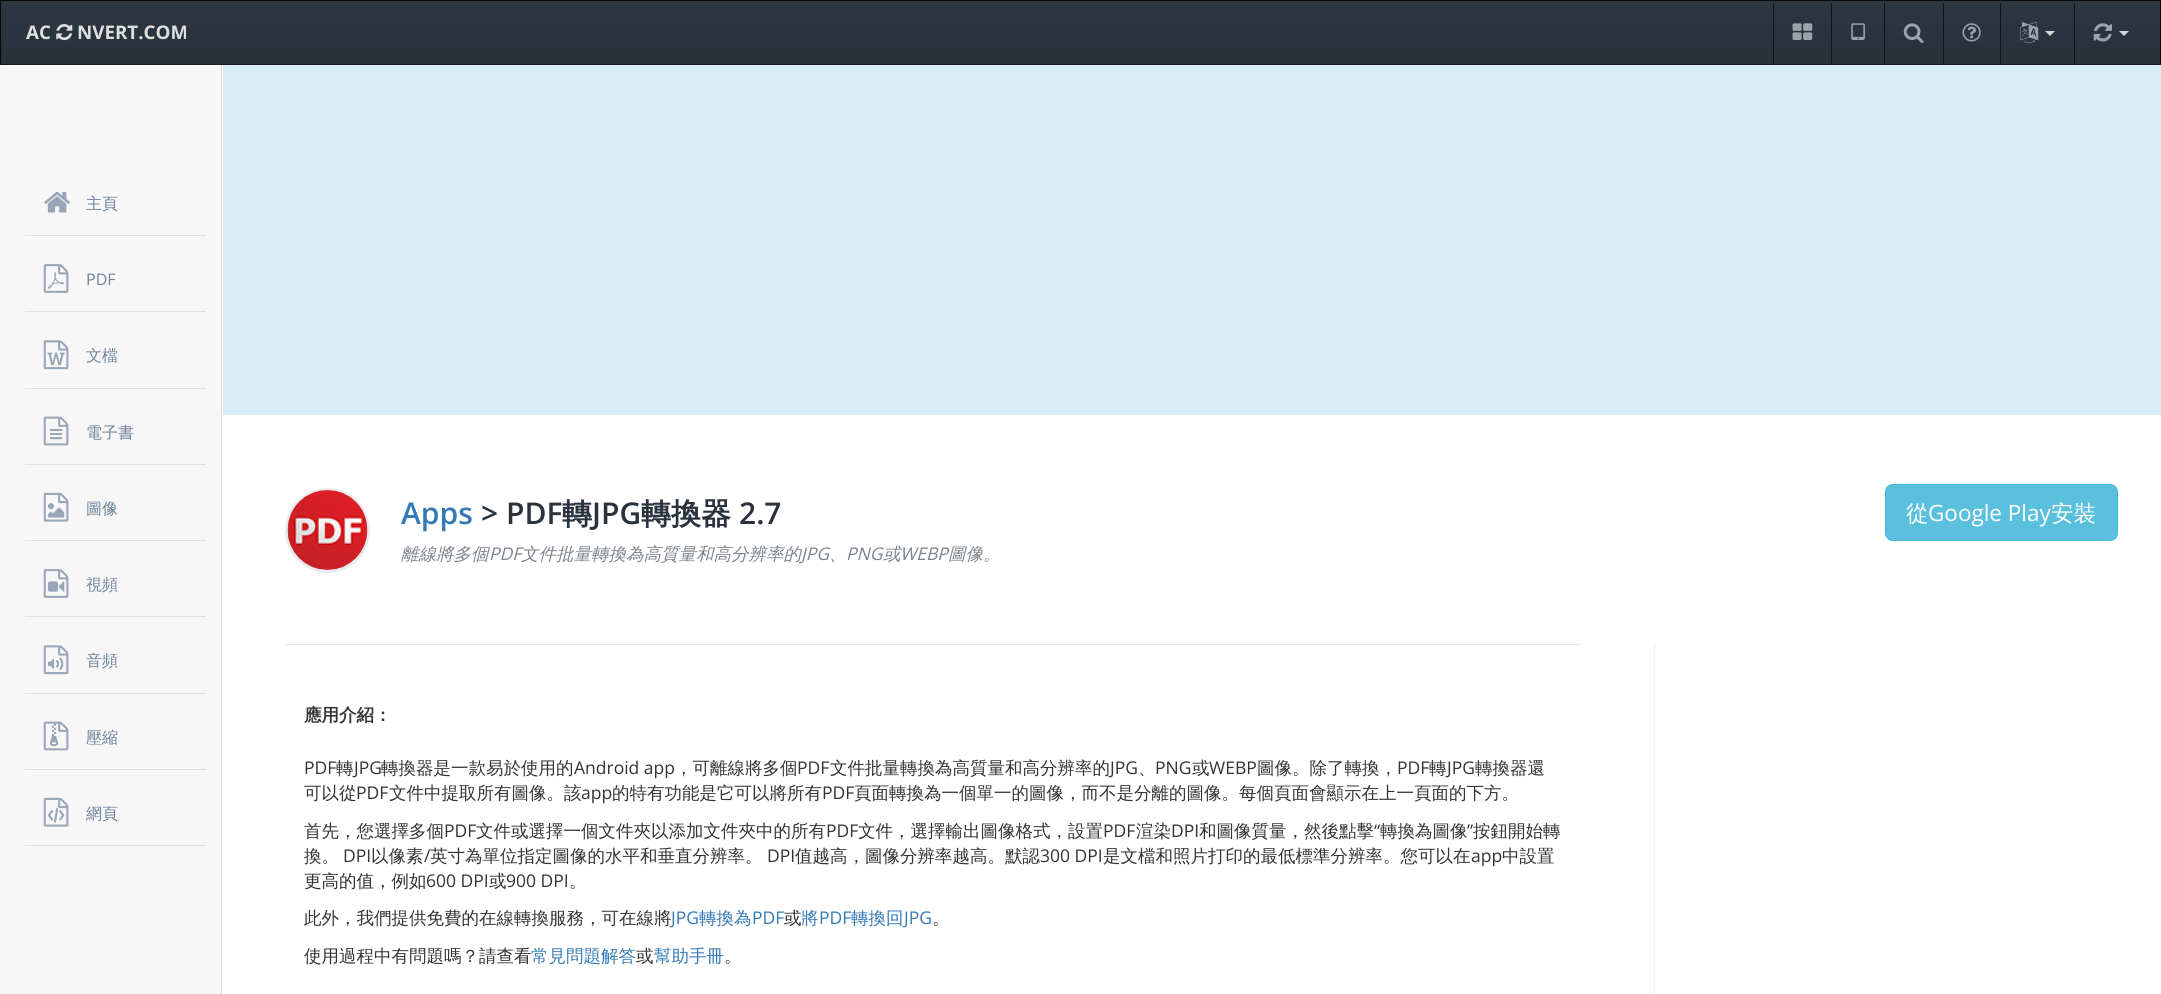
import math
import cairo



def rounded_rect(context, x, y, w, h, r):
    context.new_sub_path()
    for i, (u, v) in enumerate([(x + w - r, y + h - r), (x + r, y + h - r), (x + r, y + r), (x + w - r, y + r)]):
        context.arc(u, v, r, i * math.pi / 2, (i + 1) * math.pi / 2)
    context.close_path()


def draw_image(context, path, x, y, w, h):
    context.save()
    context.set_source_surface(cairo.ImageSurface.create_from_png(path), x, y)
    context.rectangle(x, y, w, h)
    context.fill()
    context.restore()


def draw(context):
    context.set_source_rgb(247 / 255, 247 / 255, 247 / 255)
    context.paint()
    gradient = cairo.LinearGradient(1081, 1.2, 1081, 64)
    gradient.add_color_stop_rgba(0, 44 / 255, 55 / 255, 66 / 255, 1)
    gradient.add_color_stop_rgba(1, 40 / 255, 48 / 255, 58 / 255, 1)
    context.set_source(gradient)
    context.rectangle(1, 1, 2159, 63)
    context.fill()
    context.set_source_rgb(8 / 255, 8 / 255, 8 / 255)
    context.rectangle(0, 0, 2161, 1)
    context.fill()
    context.rectangle(2160, 0, 1, 65)
    context.fill()
    context.set_source_rgb(25 / 255, 30 / 255, 35 / 255)
    context.rectangle(0, 64, 2161, 1)
    context.fill()
    context.set_source_rgb(8 / 255, 8 / 255, 8 / 255)
    context.rectangle(0, 0, 1, 65)
    context.fill()
    draw_image(context, "images/1.png", 56, 24, 17, 17)
    context.set_source_rgb(16 / 255, 20 / 255, 23 / 255)
    context.rectangle(1773, 3, 1, 61)
    context.fill()
    draw_image(context, "images/2.png", 1792, 23, 21, 17)
    context.rectangle(1831, 3, 1, 61)
    context.fill()
    draw_image(context, "images/3.png", 1851, 23, 14, 17)
    context.rectangle(1884, 3, 1, 61)
    context.fill()
    draw_image(context, "images/4.png", 1903, 23, 21, 20)
    context.rectangle(1943, 3, 1, 61)
    context.fill()
    draw_image(context, "images/5.png", 1962, 23, 19, 19)
    context.rectangle(2000, 3, 1, 61)
    context.fill()
    draw_image(context, "images/6.png", 2020, 21, 19, 23)
    context.set_source_rgb(214 / 255, 214 / 255, 214 / 255)
    context.new_path()
    context.move_to(2045, 31)
    context.line_to(2055, 31)
    context.line_to(2050, 36)
    context.close_path()
    context.fill()
    context.set_source_rgb(16 / 255, 20 / 255, 23 / 255)
    context.rectangle(2074, 3, 1, 61)
    context.fill()
    draw_image(context, "images/7.png", 2093, 23, 19, 19)
    context.set_source_rgb(214 / 255, 214 / 255, 214 / 255)
    context.new_path()
    context.move_to(2119, 31)
    context.line_to(2129, 31)
    context.line_to(2124, 36)
    context.close_path()
    context.fill()
    context.set_source_rgb(218 / 255, 225 / 255, 232 / 255)
    context.rectangle(25, 235, 181, 1)
    context.fill()
    draw_image(context, "images/8.png", 44, 191, 26, 22)
    context.rectangle(25, 311, 181, 1)
    context.fill()
    draw_image(context, "images/9.png", 43, 264, 26, 29)
    context.rectangle(25, 388, 181, 1)
    context.fill()
    draw_image(context, "images/10.png", 43, 340, 26, 30)
    context.rectangle(25, 464, 181, 1)
    context.fill()
    draw_image(context, "images/11.png", 43, 416, 26, 30)
    context.rectangle(25, 540, 181, 1)
    context.fill()
    draw_image(context, "images/12.png", 43, 492, 26, 30)
    context.rectangle(25, 616, 181, 1)
    context.fill()
    draw_image(context, "images/13.png", 43, 569, 26, 29)
    context.rectangle(25, 693, 181, 1)
    context.fill()
    draw_image(context, "images/14.png", 43, 645, 26, 30)
    context.rectangle(25, 769, 181, 1)
    context.fill()
    draw_image(context, "images/15.png", 43, 721, 26, 30)
    context.rectangle(25, 845, 181, 1)
    context.fill()
    draw_image(context, "images/16.png", 43, 797, 26, 30)
    context.set_source_rgb(1, 1, 1)
    context.rectangle(222, 65, 1939, 929)
    context.fill()
    context.set_source_rgb(218 / 255, 227 / 255, 233 / 255)
    context.set_fill_rule(cairo.FillRule.EVEN_ODD)
    context.new_path()
    context.move_to(221, 65)
    context.line_to(2161, 65)
    context.line_to(2161, 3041)
    context.line_to(228, 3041)
    context.curve_to(224, 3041, 221, 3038, 221, 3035)
    context.close_path()
    context.move_to(222, 65)
    context.line_to(2161, 65)
    context.line_to(2161, 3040)
    context.line_to(228, 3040)
    context.curve_to(225, 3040, 222, 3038, 222, 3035)
    context.close_path()
    context.fill()
    context.set_source_rgb(217 / 255, 237 / 255, 247 / 255)
    context.rectangle(223, 65, 1938, 350)
    context.fill()
    context.arc(327.5, 530.5, 41, 0, 2 * math.pi)
    context.set_source_rgb(233 / 255, 236 / 255, 238 / 255)
    context.set_line_width(3)
    context.stroke()
    draw_image(context, "images/17.png", 287, 490, 81, 80)
    context.set_source_rgb(91 / 255, 192 / 255, 222 / 255)
    rounded_rect(context, 1885.5, 484.5, 232, 56, 7.5)
    context.fill_preserve()
    context.set_source_rgb(70 / 255, 184 / 255, 218 / 255)
    context.set_line_width(1)
    context.stroke()
    context.set_source_rgb(237 / 255, 238 / 255, 241 / 255)
    context.rectangle(1654, 644, 1, 350)
    context.fill()
    context.set_source_rgb(221 / 255, 226 / 255, 233 / 255)
    context.rectangle(285, 644, 1296, 1)
    context.fill()
    context.select_font_face("Open Sans", cairo.FontSlant.NORMAL, cairo.FontWeight.BOLD)
    context.set_font_size(18.75)
    context.set_source_rgb(223 / 255, 223 / 255, 223 / 255)
    context.move_to(26, 39)
    context.show_text("AC")
    context.move_to(77, 39)
    context.show_text("NVERT.COM")
    context.select_font_face("WenQuanYi Zen Hei Medium")
    context.set_font_size(16)
    context.set_source_rgb(110 / 255, 130 / 255, 155 / 255)
    context.move_to(86, 209)
    context.show_text("主頁")
    context.select_font_face("Open Sans")
    context.move_to(86, 285)
    context.show_text("PDF")
    context.select_font_face("WenQuanYi Zen Hei Medium")
    context.move_to(86, 361)
    context.show_text("文檔")
    context.move_to(86, 438)
    context.show_text("電子書")
    context.move_to(86, 514)
    context.show_text("圖像")
    context.move_to(86, 590)
    context.show_text("視頻")
    context.move_to(86, 666)
    context.show_text("音頻")
    context.move_to(86, 743)
    context.show_text("壓縮")
    context.move_to(86, 819)
    context.show_text("網頁")
    context.select_font_face("Open Sans SemiBold")
    context.set_font_size(30)
    context.set_source_rgb(51 / 255, 122 / 255, 183 / 255)
    context.move_to(401, 524)
    context.show_text("Apps")
    context.set_source_rgb(41 / 255, 50 / 255, 61 / 255)
    context.move_to(481, 524)
    context.show_text("> PDF")
    context.select_font_face("WenQuanYi Zen Hei", cairo.FontSlant.NORMAL, cairo.FontWeight.BOLD)
    context.move_to(562, 524)
    context.show_text("轉")
    context.select_font_face("Open Sans SemiBold")
    context.move_to(592, 524)
    context.show_text("JPG")
    context.select_font_face("WenQuanYi Zen Hei", cairo.FontSlant.NORMAL, cairo.FontWeight.BOLD)
    context.move_to(641, 524)
    context.show_text("轉換器")
    context.select_font_face("Open Sans SemiBold")
    context.move_to(739, 524)
    context.show_text("2.7")
    context.select_font_face("WenQuanYi Zen Hei Medium", cairo.FontSlant.ITALIC)
    context.set_font_size(17.5)
    context.set_source_rgb(125 / 255, 132 / 255, 140 / 255)
    context.move_to(401, 560)
    context.show_text("離線將多個")
    context.select_font_face("Open Sans", cairo.FontSlant.ITALIC)
    context.move_to(489, 560)
    context.show_text("PDF")
    context.select_font_face("WenQuanYi Zen Hei Medium", cairo.FontSlant.ITALIC)
    context.move_to(521, 560)
    context.show_text("文件批量轉換為高質量和高分辨率的")
    context.select_font_face("Open Sans", cairo.FontSlant.ITALIC)
    context.move_to(801, 560)
    context.show_text("JPG")
    context.move_to(846, 560)
    context.show_text("PNG")
    context.select_font_face("WenQuanYi Zen Hei Medium", cairo.FontSlant.ITALIC)
    context.move_to(883, 560)
    context.show_text("或")
    context.select_font_face("Open Sans", cairo.FontSlant.ITALIC)
    context.move_to(900, 560)
    context.show_text("WEBP")
    context.select_font_face("WenQuanYi Zen Hei Medium", cairo.FontSlant.ITALIC)
    context.move_to(948, 560)
    context.show_text("圖像。")
    context.move_to(829, 560)
    context.show_text("、")
    context.select_font_face("WenQuanYi Zen Hei Medium")
    context.set_font_size(22.5)
    context.set_source_rgb(1, 1, 1)
    context.move_to(1906, 521)
    context.show_text("從")
    context.select_font_face("Open Sans")
    context.move_to(1928, 521)
    context.show_text("Google Play")
    context.select_font_face("WenQuanYi Zen Hei Medium")
    context.move_to(2051, 521)
    context.show_text("安裝")
    context.select_font_face("WenQuanYi Zen Hei", cairo.FontSlant.NORMAL, cairo.FontWeight.BOLD)
    context.set_font_size(17.5)
    context.set_source_rgb(51 / 255, 51 / 255, 51 / 255)
    context.move_to(304, 721)
    context.show_text("應用介紹：")
    context.select_font_face("Open Sans")
    context.move_to(304, 774)
    context.show_text("PDF")
    context.select_font_face("WenQuanYi Zen Hei Medium")
    context.move_to(336, 774)
    context.show_text("轉")
    context.select_font_face("Open Sans")
    context.move_to(354, 774)
    context.show_text("JPG")
    context.select_font_face("WenQuanYi Zen Hei Medium")
    context.move_to(381, 774)
    context.show_text("轉換器是一款易於使用的")
    context.select_font_face("Open Sans")
    context.move_to(574, 774)
    context.show_text("Android app")
    context.select_font_face("WenQuanYi Zen Hei Medium")
    context.move_to(675, 774)
    context.show_text("，可離線將多個")
    context.select_font_face("Open Sans")
    context.move_to(797, 774)
    context.show_text("PDF")
    context.select_font_face("WenQuanYi Zen Hei Medium")
    context.move_to(830, 774)
    context.show_text("文件批量轉換為高質量和高分辨率的")
    context.select_font_face("Open Sans")
    context.move_to(1110, 774)
    context.show_text("JPG")
    context.select_font_face("WenQuanYi Zen Hei Medium")
    context.move_to(1138, 774)
    context.show_text("、")
    context.select_font_face("Open Sans")
    context.move_to(1155, 774)
    context.show_text("PNG")
    context.select_font_face("WenQuanYi Zen Hei Medium")
    context.move_to(1192, 774)
    context.show_text("或")
    context.select_font_face("Open Sans")
    context.move_to(1209, 774)
    context.show_text("WEBP")
    context.select_font_face("WenQuanYi Zen Hei Medium")
    context.move_to(1257, 774)
    context.show_text("圖像。除了轉換，")
    context.select_font_face("Open Sans")
    context.move_to(1397, 774)
    context.show_text("PDF")
    context.select_font_face("WenQuanYi Zen Hei Medium")
    context.move_to(1429, 774)
    context.show_text("轉")
    context.select_font_face("Open Sans")
    context.move_to(1447, 774)
    context.show_text("JPG")
    context.select_font_face("WenQuanYi Zen Hei Medium")
    context.move_to(1475, 774)
    context.show_text("轉換器還")
    context.move_to(304, 799)
    context.show_text("可以從")
    context.select_font_face("Open Sans")
    context.move_to(356, 799)
    context.show_text("PDF")
    context.select_font_face("WenQuanYi Zen Hei Medium")
    context.move_to(389, 799)
    context.show_text("文件中提取所有圖像。該")
    context.select_font_face("Open Sans")
    context.move_to(581, 799)
    context.show_text("app")
    context.select_font_face("WenQuanYi Zen Hei Medium")
    context.move_to(612, 799)
    context.show_text("的特有功能是它可以將所有")
    context.select_font_face("Open Sans")
    context.move_to(822, 799)
    context.show_text("PDF")
    context.select_font_face("WenQuanYi Zen Hei Medium")
    context.move_to(854, 799)
    context.show_text("頁面轉換為一個單一的圖像，而不是分離的圖像。每個頁面會顯示在上一頁面的下方。")
    context.move_to(304, 837)
    context.show_text("首先，您選擇多個")
    context.select_font_face("Open Sans")
    context.move_to(444, 837)
    context.show_text("PDF")
    context.select_font_face("WenQuanYi Zen Hei Medium")
    context.move_to(476, 837)
    context.show_text("文件或選擇一個文件夾以添加文件夾中的所有")
    context.select_font_face("Open Sans")
    context.move_to(826, 837)
    context.show_text("PDF")
    context.select_font_face("WenQuanYi Zen Hei Medium")
    context.move_to(858, 837)
    context.show_text("文件，選擇輸出圖像格式，設置")
    context.select_font_face("Open Sans")
    context.move_to(1103, 837)
    context.show_text("PDF")
    context.select_font_face("WenQuanYi Zen Hei Medium")
    context.move_to(1136, 837)
    context.show_text("渲染")
    context.select_font_face("Open Sans")
    context.move_to(1171, 837)
    context.show_text("DPI")
    context.select_font_face("WenQuanYi Zen Hei Medium")
    context.move_to(1199, 837)
    context.show_text("和圖像質量，然後點擊")
    context.select_font_face("Open Sans")
    context.move_to(1374, 837)
    context.show_text("“")
    context.select_font_face("WenQuanYi Zen Hei Medium")
    context.move_to(1380, 837)
    context.show_text("轉換為圖像")
    context.select_font_face("Open Sans")
    context.move_to(1467, 837)
    context.show_text("”")
    context.select_font_face("WenQuanYi Zen Hei Medium")
    context.move_to(1473, 837)
    context.show_text("按鈕開始轉")
    context.move_to(304, 862)
    context.show_text("換。")
    context.select_font_face("Open Sans")
    context.move_to(343, 862)
    context.show_text("DPI")
    context.select_font_face("WenQuanYi Zen Hei Medium")
    context.move_to(371, 862)
    context.show_text("以像素")
    context.select_font_face("Open Sans")
    context.move_to(424, 862)
    context.show_text("/")
    context.select_font_face("WenQuanYi Zen Hei Medium")
    context.move_to(430, 862)
    context.show_text("英寸為單位指定圖像的水平和垂直分辨率。")
    context.select_font_face("Open Sans")
    context.move_to(767, 862)
    context.show_text("DPI")
    context.select_font_face("WenQuanYi Zen Hei Medium")
    context.move_to(795, 862)
    context.show_text("值越高，圖像分辨率越高。默認")
    context.select_font_face("Open Sans")
    context.move_to(1040, 862)
    context.show_text("300 DPI")
    context.select_font_face("WenQuanYi Zen Hei Medium")
    context.move_to(1103, 862)
    context.show_text("是文檔和照片打印的最低標準分辨率。您可以在")
    context.select_font_face("Open Sans")
    context.move_to(1471, 862)
    context.show_text("app")
    context.select_font_face("WenQuanYi Zen Hei Medium")
    context.move_to(1502, 862)
    context.show_text("中設置")
    context.move_to(304, 887)
    context.show_text("更高的值，例如")
    context.select_font_face("Open Sans")
    context.move_to(426, 887)
    context.show_text("600 DPI")
    context.select_font_face("WenQuanYi Zen Hei Medium")
    context.move_to(489, 887)
    context.show_text("或")
    context.select_font_face("Open Sans")
    context.move_to(506, 887)
    context.show_text("900 DPI")
    context.select_font_face("WenQuanYi Zen Hei Medium")
    context.move_to(569, 887)
    context.show_text("。")
    context.move_to(304, 924)
    context.show_text("此外，我們提供免費的在線轉換服務，可在線將")
    context.select_font_face("Open Sans")
    context.set_source_rgb(51 / 255, 122 / 255, 183 / 255)
    context.move_to(671, 924)
    context.show_text("JPG")
    context.select_font_face("WenQuanYi Zen Hei Medium")
    context.move_to(699, 924)
    context.show_text("轉換為")
    context.select_font_face("Open Sans")
    context.move_to(752, 924)
    context.show_text("PDF")
    context.select_font_face("WenQuanYi Zen Hei Medium")
    context.set_source_rgb(51 / 255, 51 / 255, 51 / 255)
    context.move_to(784, 924)
    context.show_text("或")
    context.set_source_rgb(51 / 255, 122 / 255, 183 / 255)
    context.move_to(801, 924)
    context.show_text("將")
    context.select_font_face("Open Sans")
    context.move_to(819, 924)
    context.show_text("PDF")
    context.select_font_face("WenQuanYi Zen Hei Medium")
    context.move_to(851, 924)
    context.show_text("轉換回")
    context.select_font_face("Open Sans")
    context.move_to(904, 924)
    context.show_text("JPG")
    context.select_font_face("WenQuanYi Zen Hei Medium")
    context.set_source_rgb(51 / 255, 51 / 255, 51 / 255)
    context.move_to(932, 924)
    context.show_text("。")
    context.move_to(304, 962)
    context.show_text("使用過程中有問題嗎？請查看")
    context.set_source_rgb(51 / 255, 122 / 255, 183 / 255)
    context.move_to(531, 962)
    context.show_text("常見問題解答")
    context.set_source_rgb(51 / 255, 51 / 255, 51 / 255)
    context.move_to(636, 962)
    context.show_text("或")
    context.set_source_rgb(51 / 255, 122 / 255, 183 / 255)
    context.move_to(654, 962)
    context.show_text("幫助手冊")
    context.set_source_rgb(51 / 255, 51 / 255, 51 / 255)
    context.move_to(724, 962)
    context.show_text("。")


surface = cairo.ImageSurface(cairo.Format.RGB24, 2161, 994)
context = cairo.Context(surface)
options = cairo.FontOptions()
options.set_hint_metrics(cairo.HintMetrics.OFF)
options.set_hint_style(cairo.HintStyle.NONE)
context.set_font_options(options)
context.set_miter_limit(4)
draw(context)
surface.write_to_png("out.png")
